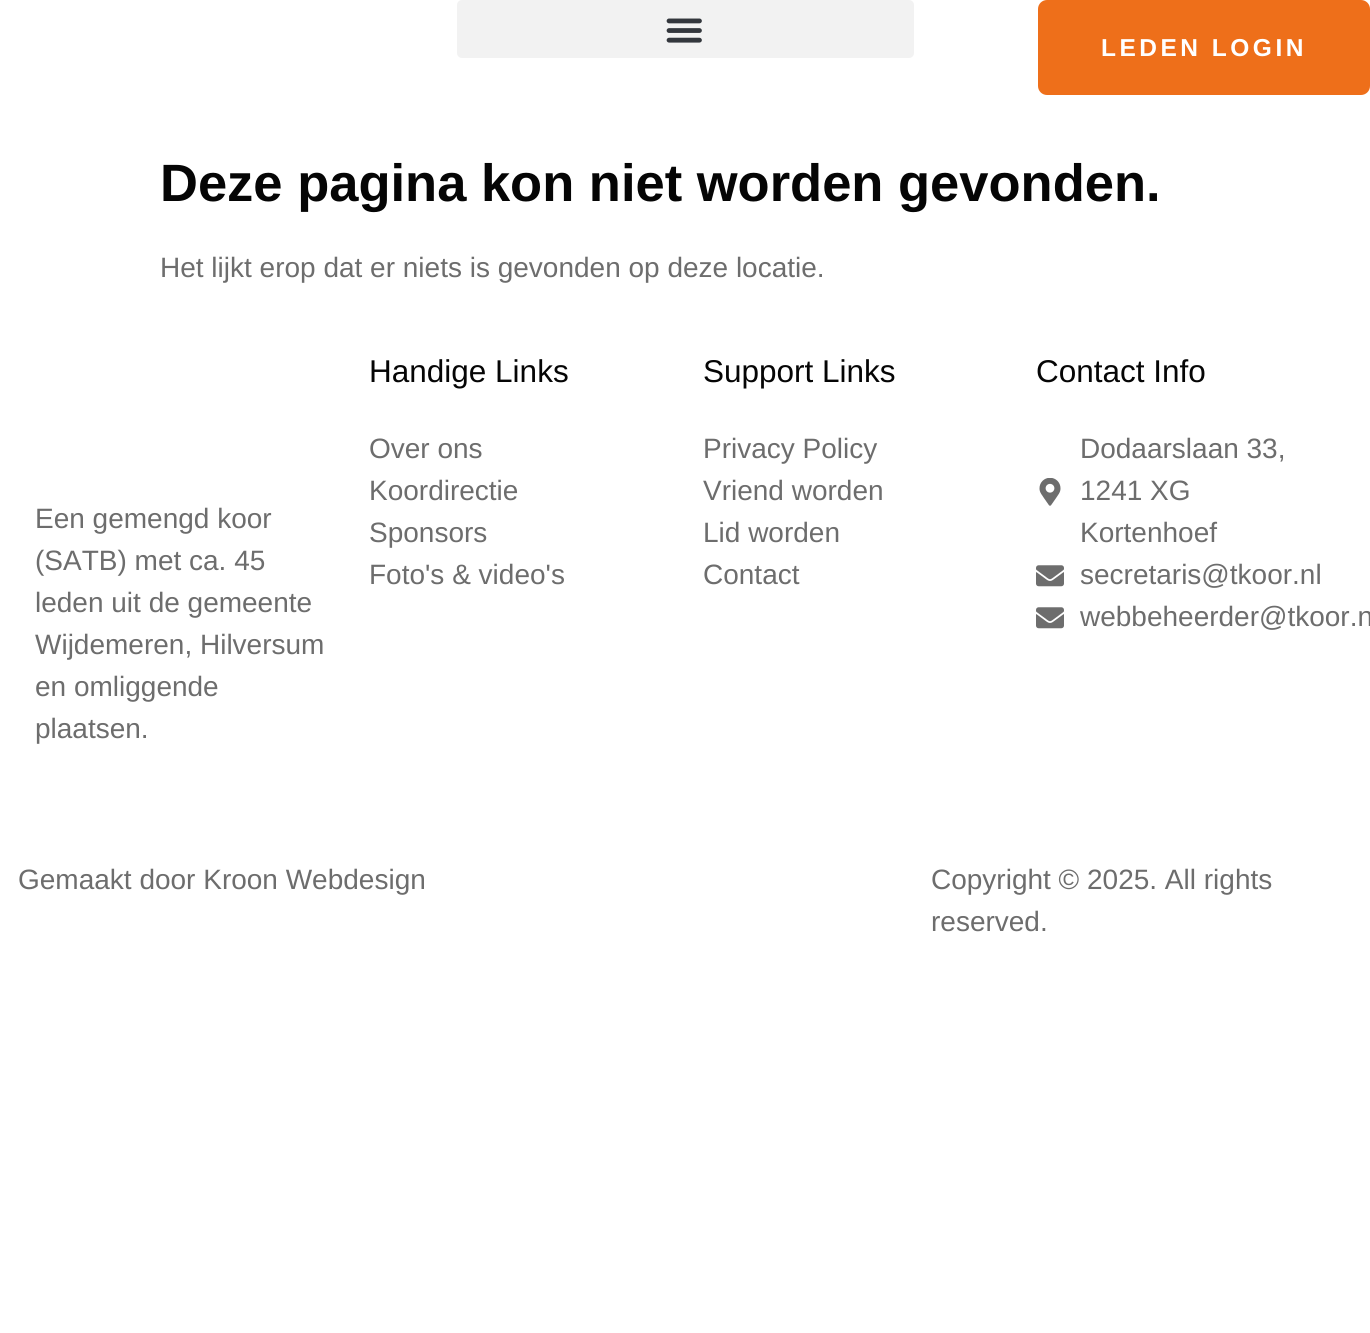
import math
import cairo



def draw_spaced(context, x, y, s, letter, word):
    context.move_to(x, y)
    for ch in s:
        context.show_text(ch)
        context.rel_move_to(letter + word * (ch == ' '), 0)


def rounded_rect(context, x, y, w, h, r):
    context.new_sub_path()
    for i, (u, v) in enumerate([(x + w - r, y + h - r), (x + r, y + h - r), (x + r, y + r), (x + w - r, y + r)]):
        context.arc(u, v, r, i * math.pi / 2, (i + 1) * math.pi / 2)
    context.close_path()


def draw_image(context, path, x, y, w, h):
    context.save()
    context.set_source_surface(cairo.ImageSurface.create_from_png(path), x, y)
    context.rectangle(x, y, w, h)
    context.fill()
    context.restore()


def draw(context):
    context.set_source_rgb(1, 1, 1)
    context.paint()
    context.set_source_rgb(242 / 255, 242 / 255, 242 / 255)
    rounded_rect(context, 457, 0, 457, 58, 5)
    context.fill()
    draw_image(context, "images/1.png", 666, 18, 36, 25)
    context.set_source_rgb(238 / 255, 111 / 255, 26 / 255)
    rounded_rect(context, 1038, 0, 332, 95, 9)
    context.fill()
    draw_image(context, "images/2.png", 1039, 478, 22, 28)
    draw_image(context, "images/3.png", 1036, 565, 28, 22)
    draw_image(context, "images/3.png", 1036, 607, 28, 22)
    context.select_font_face("Liberation Sans", cairo.FontSlant.NORMAL, cairo.FontWeight.BOLD)
    context.set_font_size(24.5)
    context.set_source_rgb(1, 1, 1)
    draw_spaced(context, 1101, 56, "LEDEN LOGIN", 3.5, 0)
    context.set_font_size(52.5)
    context.set_source_rgb(5 / 255, 5 / 255, 5 / 255)
    context.move_to(160, 201)
    context.show_text("Deze pagina kon niet worden gevonden.")
    context.select_font_face("Liberation Sans")
    context.set_font_size(28)
    context.set_source_rgb(109 / 255, 109 / 255, 109 / 255)
    context.move_to(160, 277)
    context.show_text("Het lijkt erop dat er niets is gevonden op deze locatie.")
    context.move_to(35, 528)
    context.show_text("Een gemengd koor")
    context.move_to(35, 570)
    context.show_text("(SATB) met ca. 45")
    context.move_to(35, 612)
    context.show_text("leden uit de gemeente")
    context.move_to(35, 654)
    context.show_text("Wijdemeren, Hilversum")
    context.move_to(35, 696)
    context.show_text("en omliggende")
    context.move_to(35, 738)
    context.show_text("plaatsen.")
    context.set_font_size(31.5)
    context.set_source_rgb(5 / 255, 5 / 255, 5 / 255)
    context.move_to(369, 382)
    context.show_text("Handige Links")
    context.set_font_size(28)
    context.set_source_rgb(109 / 255, 109 / 255, 109 / 255)
    context.move_to(369, 458)
    context.show_text("Over ons")
    context.move_to(369, 500)
    context.show_text("Koordirectie")
    context.move_to(369, 542)
    context.show_text("Sponsors")
    context.move_to(369, 584)
    context.show_text("Foto's & video's")
    context.set_font_size(31.5)
    context.set_source_rgb(5 / 255, 5 / 255, 5 / 255)
    context.move_to(703, 382)
    context.show_text("Support Links")
    context.set_font_size(28)
    context.set_source_rgb(109 / 255, 109 / 255, 109 / 255)
    context.move_to(703, 458)
    context.show_text("Privacy Policy")
    context.move_to(703, 500)
    context.show_text("Vriend worden")
    context.move_to(703, 542)
    context.show_text("Lid worden")
    context.move_to(703, 584)
    context.show_text("Contact")
    context.set_font_size(31.5)
    context.set_source_rgb(5 / 255, 5 / 255, 5 / 255)
    context.move_to(1036, 382)
    context.show_text("Contact Info")
    context.set_font_size(28)
    context.set_source_rgb(109 / 255, 109 / 255, 109 / 255)
    context.move_to(1080, 458)
    context.show_text("Dodaarslaan 33,")
    context.move_to(1080, 500)
    context.show_text("1241 XG")
    context.move_to(1080, 542)
    context.show_text("Kortenhoef")
    context.move_to(1080, 584)
    context.show_text("secretaris@tkoor.nl")
    context.move_to(1080, 626)
    context.show_text("webbeheerder@tkoor.n")
    context.move_to(18, 889)
    context.show_text("Gemaakt door Kroon Webdesign")
    context.move_to(931, 889)
    context.show_text("Copyright © 2025. All rights")
    context.move_to(931, 931)
    context.show_text("reserved.")


surface = cairo.ImageSurface(cairo.Format.RGB24, 1370, 1333)
context = cairo.Context(surface)
options = cairo.FontOptions()
options.set_hint_metrics(cairo.HintMetrics.OFF)
options.set_hint_style(cairo.HintStyle.NONE)
context.set_font_options(options)
context.set_miter_limit(4)
draw(context)
surface.write_to_png("out.png")
